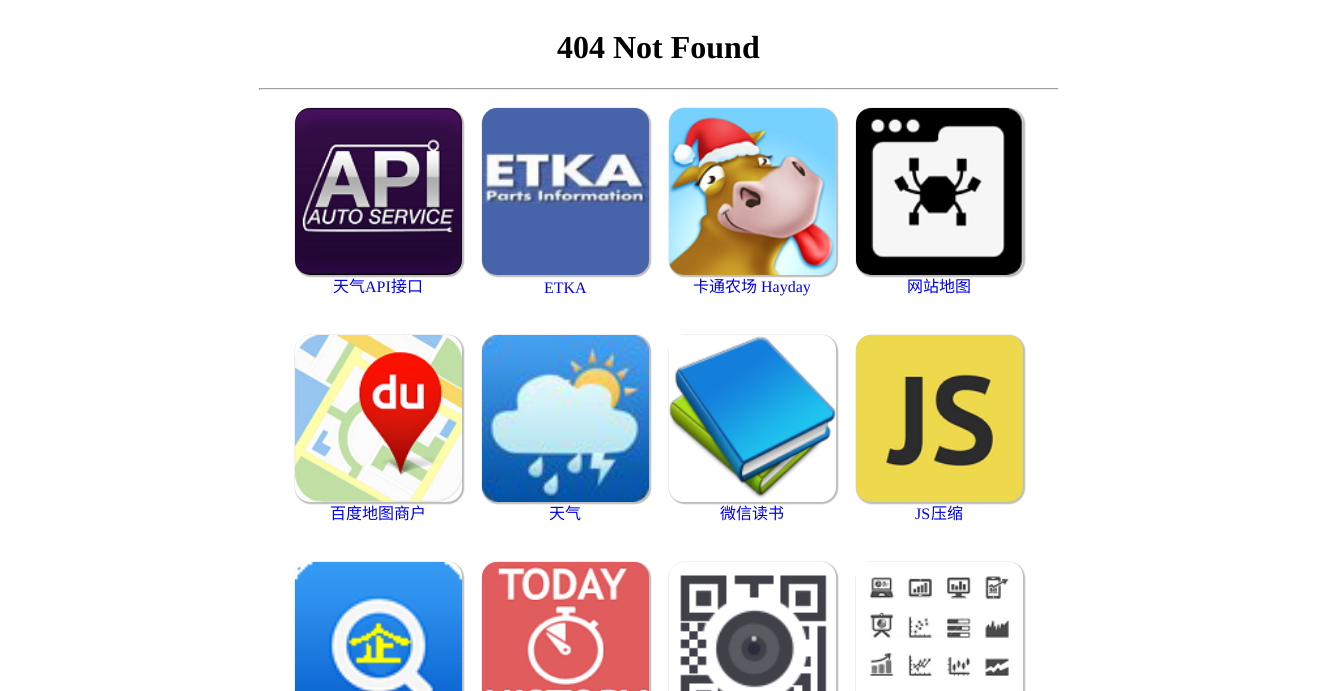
import math
import cairo



def rounded_rect(context, x, y, w, h, r):
    context.new_sub_path()
    for i, (u, v) in enumerate([(x + w - r, y + h - r), (x + r, y + h - r), (x + r, y + r), (x + w - r, y + r)]):
        context.arc(u, v, r, i * math.pi / 2, (i + 1) * math.pi / 2)
    context.close_path()


def draw_shadow(context, x, y, w, h, r, blur, alpha):
    context.push_group_with_content(cairo.Content.ALPHA)
    context.set_operator(cairo.Operator.SOURCE)
    for i in range(15, -16, -2):
        e = blur * i / 6
        if min(w, h) + 2 * e > 0:
            context.set_source_rgba(0, 0, 0, alpha * math.erfc((i - 1) / 8.5) / 2)
            rounded_rect(context, x - e, y - e, w + 2 * e, h + 2 * e, max(0, min(r + e + blur * .6, min(w, h) / 2 + e)))
            context.fill()
    context.mask(context.pop_group())


def draw_image(context, path, x, y, w, h):
    context.save()
    context.set_source_surface(cairo.ImageSurface.create_from_png(path), x, y)
    context.rectangle(x, y, w, h)
    context.fill()
    context.restore()


def draw(context):
    context.set_source_rgb(1, 1, 1)
    context.paint()
    context.set_source_rgb(159 / 255, 159 / 255, 159 / 255)
    context.rectangle(259, 88, 800, 1)
    context.fill()
    context.set_source_rgb(238 / 255, 238 / 255, 238 / 255)
    context.rectangle(1058, 88, 1, 2)
    context.fill()
    context.rectangle(259, 89, 800, 1)
    context.fill()
    context.set_source_rgb(159 / 255, 159 / 255, 159 / 255)
    context.rectangle(259, 88, 1, 2)
    context.fill()
    context.set_source_rgb(189 / 255, 189 / 255, 189 / 255)
    draw_shadow(context, 295, 108, 169, 169, 16, 0.5, 1)
    draw_image(context, "images/1.png", 295, 108, 167, 167)
    draw_shadow(context, 482, 108, 169, 169, 16, 0.5, 1)
    draw_image(context, "images/2.png", 482, 108, 167, 167)
    draw_shadow(context, 669, 108, 169, 169, 16, 0.5, 1)
    draw_image(context, "images/3.png", 669, 108, 167, 167)
    draw_shadow(context, 856, 108, 169, 169, 16, 0.5, 1)
    draw_image(context, "images/4.png", 856, 108, 167, 167)
    draw_shadow(context, 295, 335, 169, 169, 16, 0.5, 1)
    draw_image(context, "images/5.png", 295, 335, 167, 167)
    draw_shadow(context, 482, 335, 169, 169, 16, 0.5, 1)
    draw_image(context, "images/6.png", 482, 335, 167, 167)
    context.save()
    context.set_fill_rule(cairo.FillRule.EVEN_ODD)
    context.new_path()
    context.move_to(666, 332)
    context.line_to(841, 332)
    context.line_to(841, 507)
    context.line_to(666, 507)
    context.close_path()
    context.move_to(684, 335)
    context.line_to(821, 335)
    context.curve_to(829.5, 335, 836, 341.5, 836, 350)
    context.line_to(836, 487)
    context.curve_to(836, 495.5, 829.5, 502, 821, 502)
    context.line_to(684, 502)
    context.curve_to(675.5, 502, 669, 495.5, 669, 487)
    context.line_to(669, 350)
    context.curve_to(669, 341.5, 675.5, 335, 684, 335)
    context.close_path()
    context.clip()
    draw_shadow(context, 669, 335, 169, 169, 16, 0.5, 1)
    context.restore()
    draw_image(context, "images/7.png", 669, 336, 167, 163)
    draw_shadow(context, 856, 335, 169, 169, 16, 0.5, 1)
    draw_image(context, "images/8.png", 856, 335, 167, 167)
    context.save()
    context.set_fill_rule(cairo.FillRule.EVEN_ODD)
    context.new_path()
    context.move_to(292, 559)
    context.line_to(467, 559)
    context.line_to(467, 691)
    context.line_to(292, 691)
    context.close_path()
    context.move_to(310, 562)
    context.line_to(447, 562)
    context.curve_to(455.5, 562, 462, 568.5, 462, 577)
    context.line_to(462, 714)
    context.curve_to(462, 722.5, 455.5, 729, 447, 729)
    context.line_to(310, 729)
    context.curve_to(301.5, 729, 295, 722.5, 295, 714)
    context.line_to(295, 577)
    context.curve_to(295, 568.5, 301.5, 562, 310, 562)
    context.close_path()
    context.clip()
    draw_shadow(context, 295, 562, 169, 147, 16, 0.5, 1)
    context.restore()
    draw_image(context, "images/9.png", 295, 562, 167, 129)
    draw_shadow(context, 482, 562, 169, 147, 16, 0.5, 1)
    draw_image(context, "images/10.png", 482, 562, 167, 129)
    draw_shadow(context, 669, 562, 169, 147, 16, 0.5, 1)
    draw_image(context, "images/11.png", 669, 562, 167, 129)
    context.save()
    context.set_fill_rule(cairo.FillRule.EVEN_ODD)
    context.new_path()
    context.move_to(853, 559)
    context.line_to(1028, 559)
    context.line_to(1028, 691)
    context.line_to(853, 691)
    context.close_path()
    context.move_to(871, 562)
    context.line_to(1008, 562)
    context.curve_to(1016.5, 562, 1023, 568.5, 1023, 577)
    context.line_to(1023, 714)
    context.curve_to(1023, 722.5, 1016.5, 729, 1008, 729)
    context.line_to(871, 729)
    context.curve_to(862.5, 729, 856, 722.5, 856, 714)
    context.line_to(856, 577)
    context.curve_to(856, 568.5, 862.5, 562, 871, 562)
    context.close_path()
    context.clip()
    draw_shadow(context, 856, 562, 169, 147, 16, 0.5, 1)
    context.restore()
    draw_image(context, "images/12.png", 856, 562, 167, 115)
    context.select_font_face("Liberation Serif", cairo.FontSlant.NORMAL, cairo.FontWeight.BOLD)
    context.set_font_size(32)
    context.set_source_rgb(0, 0, 0)
    context.move_to(557, 58)
    context.show_text("404 Not Found")
    context.select_font_face("Noto Sans CJK SC")
    context.set_font_size(16)
    context.set_source_rgb(0, 0, 238 / 255)
    context.move_to(333, 292)
    context.show_text("天气")
    context.select_font_face("Liberation Serif")
    context.move_to(365, 292)
    context.show_text("API")
    context.select_font_face("Noto Sans CJK SC")
    context.move_to(391, 292)
    context.show_text("接口")
    context.select_font_face("Liberation Serif")
    context.move_to(544, 293)
    context.show_text("ETKA")
    context.select_font_face("Noto Sans CJK SC")
    context.move_to(693, 292)
    context.show_text("卡通农场")
    context.select_font_face("Liberation Serif")
    context.move_to(761, 292)
    context.show_text("Hayday")
    context.select_font_face("Noto Sans CJK SC")
    context.move_to(907, 292)
    context.show_text("网站地图")
    context.move_to(330, 519)
    context.show_text("百度地图商户")
    context.move_to(549, 519)
    context.show_text("天气")
    context.move_to(720, 519)
    context.show_text("微信读书")
    context.select_font_face("Liberation Serif")
    context.move_to(915, 519)
    context.show_text("JS")
    context.select_font_face("Noto Sans CJK SC")
    context.move_to(931, 519)
    context.show_text("压缩")


surface = cairo.ImageSurface(cairo.Format.RGB24, 1317, 691)
context = cairo.Context(surface)
options = cairo.FontOptions()
options.set_hint_metrics(cairo.HintMetrics.OFF)
options.set_hint_style(cairo.HintStyle.NONE)
context.set_font_options(options)
context.set_miter_limit(4)
draw(context)
surface.write_to_png("out.png")
